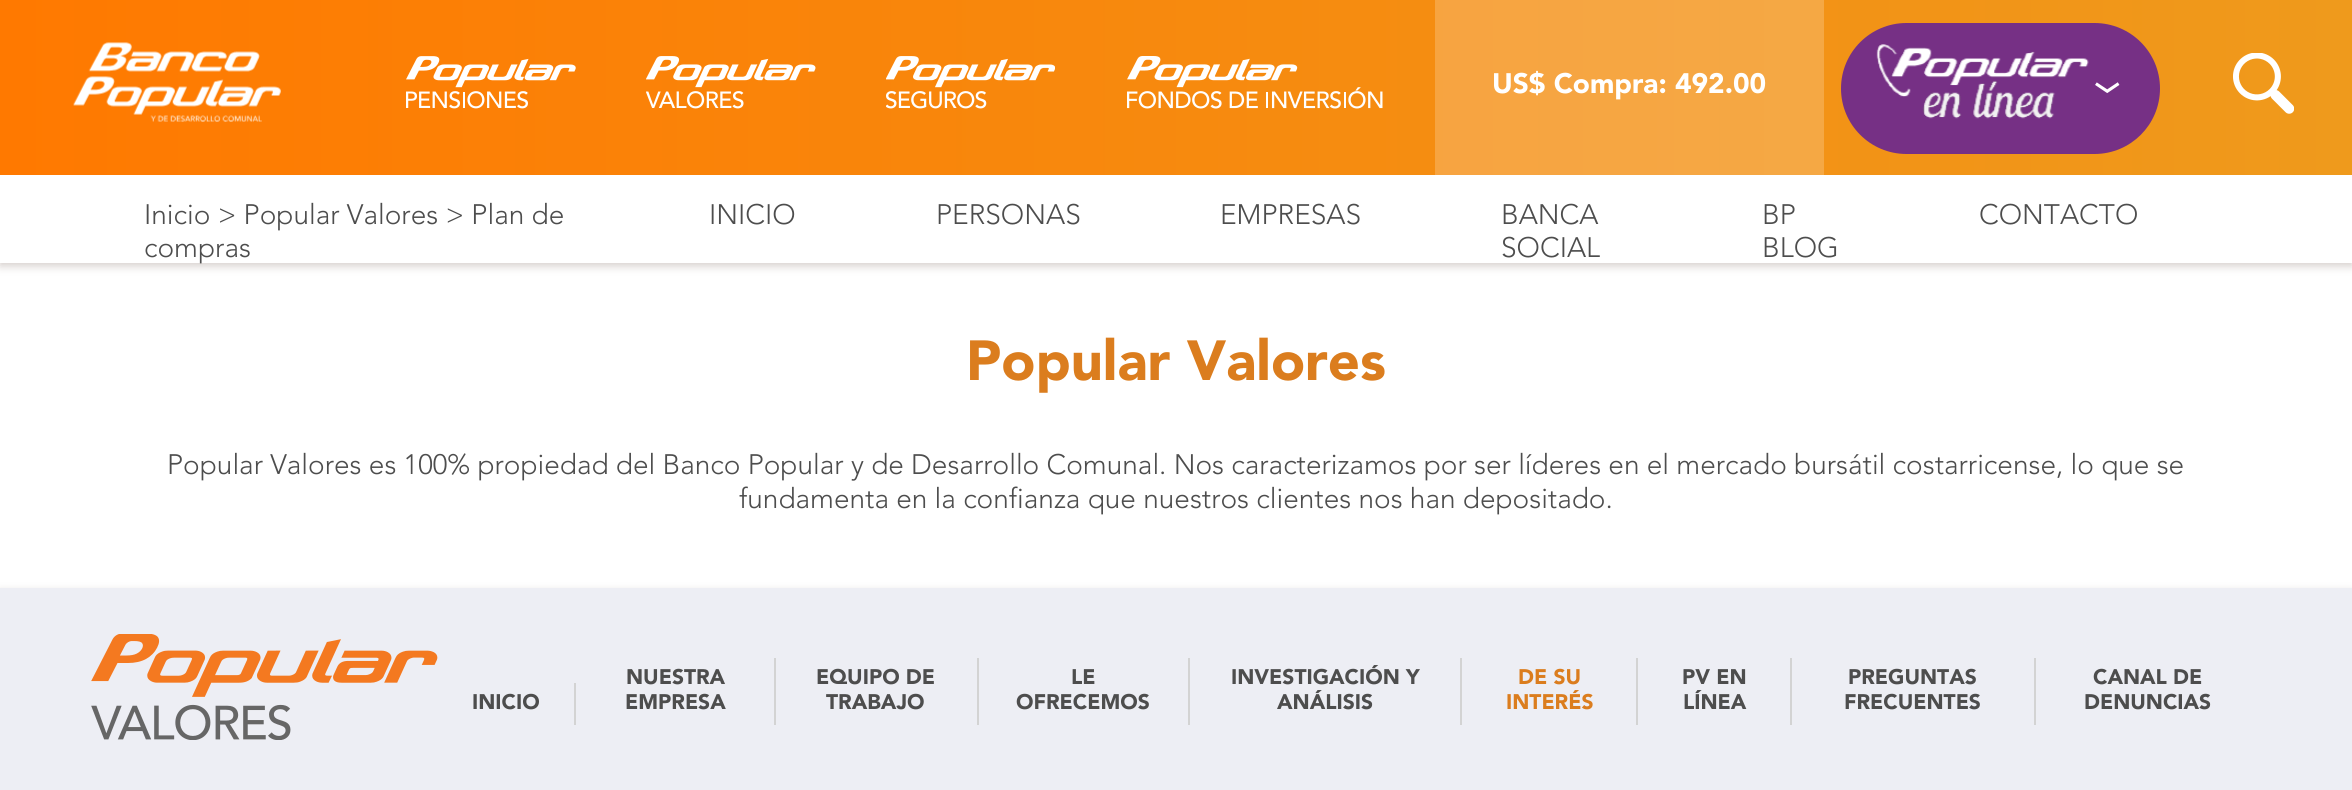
import math
import cairo



def rounded_rect(context, x, y, w, h, r):
    context.new_sub_path()
    for i, (u, v) in enumerate([(x + w - r, y + h - r), (x + r, y + h - r), (x + r, y + r), (x + w - r, y + r)]):
        context.arc(u, v, r, i * math.pi / 2, (i + 1) * math.pi / 2)
    context.close_path()


def draw_shadow(context, x, y, w, h, r, blur, alpha):
    context.push_group_with_content(cairo.Content.ALPHA)
    context.set_operator(cairo.Operator.SOURCE)
    for i in range(15, -16, -2):
        e = blur * i / 6
        if min(w, h) + 2 * e > 0:
            context.set_source_rgba(0, 0, 0, alpha * math.erfc((i - 1) / 8.5) / 2)
            rounded_rect(context, x - e, y - e, w + 2 * e, h + 2 * e, max(0, min(r + e + blur * .6, min(w, h) / 2 + e)))
            context.fill()
    context.mask(context.pop_group())


def draw_image(context, path, x, y, w, h):
    context.save()
    context.set_source_surface(cairo.ImageSurface.create_from_png(path), x, y)
    context.rectangle(x, y, w, h)
    context.fill()
    context.restore()


def draw(context):
    context.set_source_rgb(1, 1, 1)
    context.paint()
    context.set_source_rgb(213 / 255, 206 / 255, 203 / 255)
    draw_shadow(context, 0, 4, 2352, 262, 0, 4.5, 1)
    gradient = cairo.LinearGradient(0, 131, 2352, 131)
    gradient.add_color_stop_rgba(0, 1, 121 / 255, 0, 1)
    gradient.add_color_stop_rgba(1, 239 / 255, 154 / 255, 28 / 255, 1)
    context.set_source(gradient)
    context.rectangle(0, 0, 2352, 175)
    context.fill()
    gradient = cairo.LinearGradient(0, 131, 2352, 131)
    gradient.add_color_stop_rgba(0, 1, 148 / 255, 51 / 255, 1)
    gradient.add_color_stop_rgba(1, 242 / 255, 174 / 255, 73 / 255, 1)
    context.set_source(gradient)
    context.rectangle(1435, 0, 389, 175)
    context.fill()
    draw_image(context, "images/1.png", 73, 42, 208, 80)
    draw_image(context, "images/2.png", 406, 56, 170, 53)
    draw_image(context, "images/3.png", 646, 56, 170, 53)
    draw_image(context, "images/4.png", 886, 56, 169, 53)
    draw_image(context, "images/5.png", 1127, 56, 256, 53)
    context.set_source_rgb(118 / 255, 48 / 255, 133 / 255)
    rounded_rect(context, 1841, 23, 319, 131, 65.5)
    context.fill()
    draw_image(context, "images/6.png", 1876, 44, 213, 75)
    draw_image(context, "images/7.png", 2233, 53, 61, 61)
    context.set_source_rgb(1, 1, 1)
    context.rectangle(0, 175, 2352, 88)
    context.fill()
    context.set_source_rgb(213 / 255, 206 / 255, 203 / 255)
    draw_shadow(context, 0, 592, 2352, 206, 0, 4.5, 1)
    context.set_source_rgb(237 / 255, 238 / 255, 244 / 255)
    context.rectangle(0, 588, 2352, 202)
    context.fill()
    draw_image(context, "images/8.png", 91, 634, 347, 106)
    context.set_source_rgb(211 / 255, 211 / 255, 211 / 255)
    context.rectangle(574, 683, 2, 42)
    context.fill()
    context.rectangle(774, 658, 2, 67)
    context.fill()
    context.rectangle(977, 658, 2, 67)
    context.fill()
    context.rectangle(1188, 658, 2, 67)
    context.fill()
    context.rectangle(1460, 658, 2, 67)
    context.fill()
    context.rectangle(1636, 658, 2, 67)
    context.fill()
    context.rectangle(1790, 658, 2, 67)
    context.fill()
    context.rectangle(2034, 658, 2, 67)
    context.fill()
    context.select_font_face("Avenir Black")
    context.set_font_size(28)
    context.set_source_rgb(1, 1, 1)
    context.move_to(1492, 93)
    context.show_text("US$ Compra: 492.00")
    context.select_font_face("Avenir Light")
    context.set_font_size(60)
    context.save()
    context.translate(2093, 78)
    context.rotate(90 * math.pi / 180)
    context.move_to(0, 0)
    context.show_text("›")
    context.restore()
    context.set_font_size(28)
    context.set_source_rgb(77 / 255, 77 / 255, 77 / 255)
    context.move_to(144, 224)
    context.show_text("Inicio > Popular Valores > Plan de")
    context.move_to(144, 257)
    context.show_text("compras")
    context.move_to(709, 224)
    context.show_text("INICIO")
    context.move_to(936, 224)
    context.show_text("PERSONAS")
    context.move_to(1220, 224)
    context.show_text("EMPRESAS")
    context.move_to(1501, 224)
    context.show_text("BANCA")
    context.move_to(1501, 257)
    context.show_text("SOCIAL")
    context.move_to(1762, 224)
    context.show_text("BP")
    context.move_to(1762, 257)
    context.show_text("BLOG")
    context.move_to(1979, 224)
    context.show_text("CONTACTO")
    context.select_font_face("Avenir Black")
    context.set_font_size(56)
    context.set_source_rgb(219 / 255, 125 / 255, 30 / 255)
    context.move_to(966, 380)
    context.show_text("Popular Valores")
    context.select_font_face("Avenir Light")
    context.set_font_size(28)
    context.set_source_rgb(77 / 255, 77 / 255, 77 / 255)
    context.move_to(167, 474)
    context.show_text("Popular Valores es 100% propiedad del Banco Popular y de Desarrollo Comunal. Nos caracterizamos por ser líderes en el mercado bursátil costarricense, lo que se")
    context.move_to(739, 508)
    context.show_text("fundamenta en la confianza que nuestros clientes nos han depositado.")
    context.select_font_face("Avenir Black")
    context.set_font_size(21)
    context.move_to(472, 709)
    context.show_text("INICIO")
    context.move_to(626, 684)
    context.show_text("NUESTRA")
    context.move_to(625, 709)
    context.show_text("EMPRESA")
    context.move_to(816, 684)
    context.show_text("EQUIPO DE")
    context.move_to(826, 709)
    context.show_text("TRABAJO")
    context.move_to(1071, 684)
    context.show_text("LE")
    context.move_to(1016, 709)
    context.show_text("OFRECEMOS")
    context.move_to(1231, 684)
    context.show_text("INVESTIGACIÓN Y")
    context.move_to(1277, 709)
    context.show_text("ANÁLISIS")
    context.set_source_rgb(219 / 255, 125 / 255, 30 / 255)
    context.move_to(1518, 684)
    context.show_text("DE SU")
    context.move_to(1506, 709)
    context.show_text("INTERÉS")
    context.set_source_rgb(77 / 255, 77 / 255, 77 / 255)
    context.move_to(1682, 684)
    context.show_text("PV EN")
    context.move_to(1683, 709)
    context.show_text("LÍNEA")
    context.move_to(1848, 684)
    context.show_text("PREGUNTAS")
    context.move_to(1844, 709)
    context.show_text("FRECUENTES")
    context.move_to(2093, 684)
    context.show_text("CANAL DE")
    context.move_to(2084, 709)
    context.show_text("DENUNCIAS")


surface = cairo.ImageSurface(cairo.Format.RGB24, 2352, 790)
context = cairo.Context(surface)
options = cairo.FontOptions()
options.set_hint_metrics(cairo.HintMetrics.OFF)
options.set_hint_style(cairo.HintStyle.NONE)
context.set_font_options(options)
context.set_miter_limit(4)
draw(context)
surface.write_to_png("out.png")
